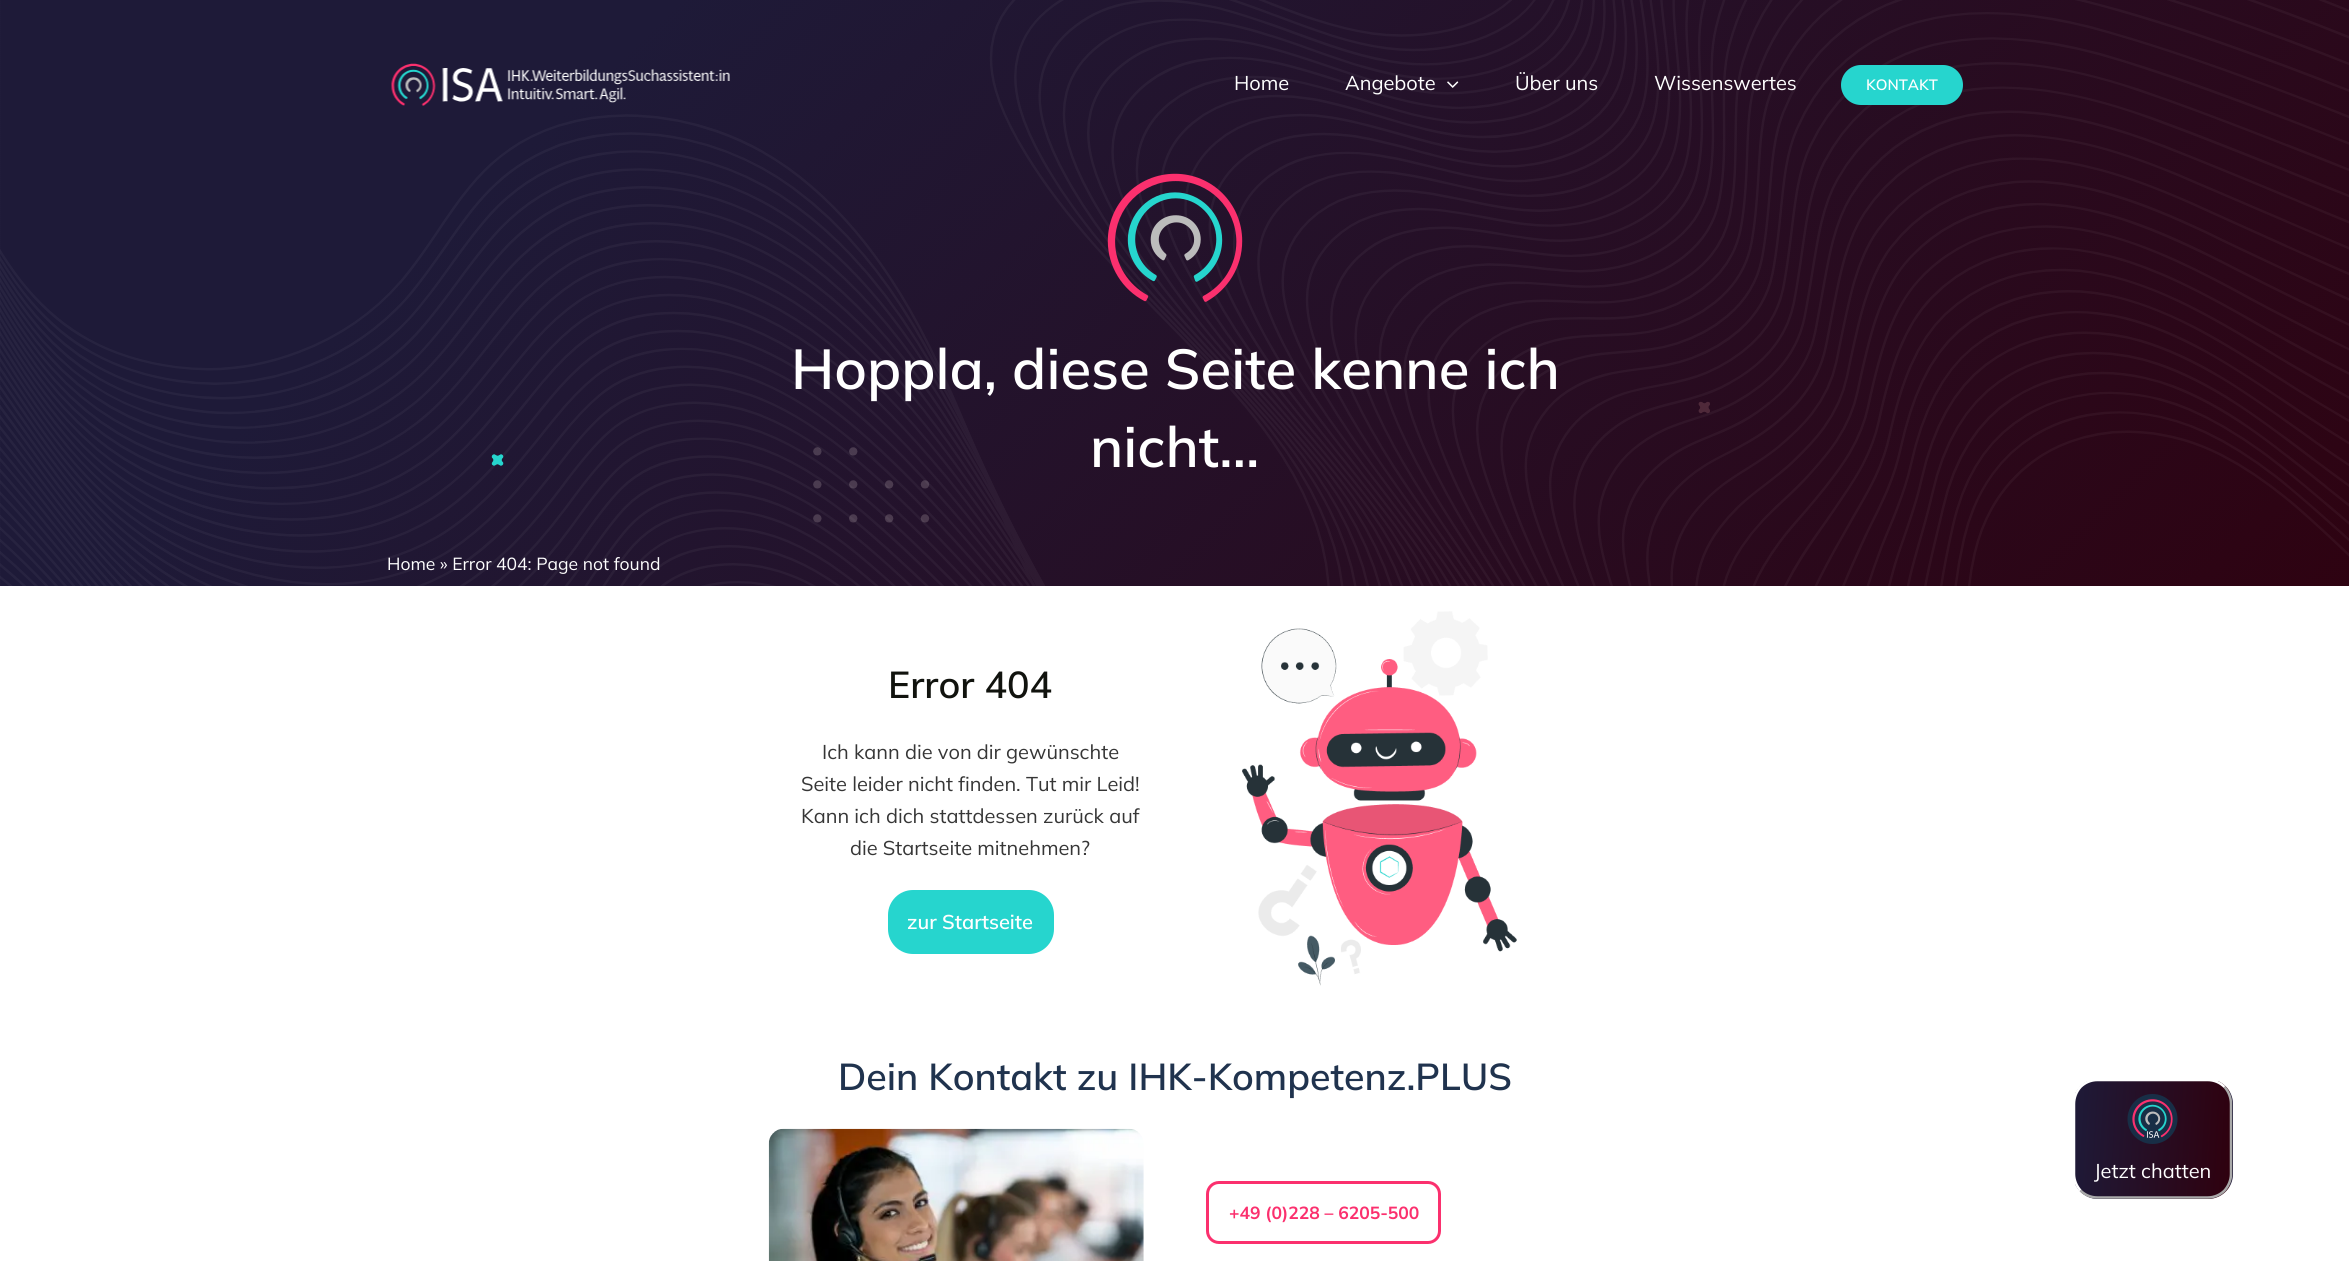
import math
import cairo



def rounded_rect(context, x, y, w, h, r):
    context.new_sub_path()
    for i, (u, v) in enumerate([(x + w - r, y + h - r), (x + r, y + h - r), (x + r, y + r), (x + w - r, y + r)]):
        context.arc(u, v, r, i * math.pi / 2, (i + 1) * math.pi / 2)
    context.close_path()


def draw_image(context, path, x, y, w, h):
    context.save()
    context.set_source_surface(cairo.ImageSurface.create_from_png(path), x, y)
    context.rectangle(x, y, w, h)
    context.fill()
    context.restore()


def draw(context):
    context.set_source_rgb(1, 1, 1)
    context.paint()
    draw_image(context, "images/3.png", 0, 0, 2349, 586)
    draw_image(context, "images/1.png", 391, 63, 339, 43)
    draw_image(context, "images/2.png", 1447, 81, 12, 7)
    context.set_source_rgb(38 / 255, 213 / 255, 206 / 255)
    rounded_rect(context, 1841, 65, 122, 40, 20)
    context.fill()
    draw_image(context, "images/4.png", 1107, 173, 136, 129)
    rounded_rect(context, 888, 890, 166, 64, 25)
    context.fill()
    draw_image(context, "images/5.png", 1242, 611, 275, 375)
    draw_image(context, "images/6.png", 768, 1128, 376, 133)
    rounded_rect(context, 1207.5, 1182.5, 232, 60, 11.5)
    context.set_source_rgb(251 / 255, 48 / 255, 110 / 255)
    context.set_line_width(3)
    context.stroke()
    context.save()
    rounded_rect(context, 2073, 1079, 160, 120, 25)
    context.clip()
    gradient = cairo.LinearGradient(2072, 1134, 2233, 1144)
    gradient.add_color_stop_rgba(0, 30 / 255, 26 / 255, 56 / 255, 1)
    gradient.add_color_stop_rgba(0.99, 47 / 255, 1 / 255, 15 / 255, 1)
    context.set_source(gradient)
    context.rectangle(2075, 1081, 155, 115)
    context.fill()
    gradient = cairo.LinearGradient(2227, 1134, 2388, 1144)
    gradient.add_color_stop_rgba(0, 30 / 255, 26 / 255, 56 / 255, 1)
    gradient.add_color_stop_rgba(0.99, 47 / 255, 1 / 255, 15 / 255, 1)
    context.set_source(gradient)
    context.rectangle(2230, 1092, 3, 94)
    context.fill()
    gradient = cairo.LinearGradient(2072, 1249, 2233, 1259)
    gradient.add_color_stop_rgba(0, 30 / 255, 26 / 255, 56 / 255, 1)
    gradient.add_color_stop_rgba(0.99, 47 / 255, 1 / 255, 15 / 255, 1)
    context.set_source(gradient)
    context.rectangle(2086, 1196, 134, 3)
    context.fill()
    context.restore()
    context.new_path()
    context.move_to(2224.5, 1087)
    context.curve_to(2228.5, 1091.5, 2231, 1097.5, 2231, 1104)
    context.line_to(2231, 1174)
    context.curve_to(2231, 1180, 2228.5, 1186, 2224.5, 1190.5)
    context.curve_to(2220, 1195, 2214, 1197.5, 2207.5, 1197.5)
    context.line_to(2097.5, 1197.5)
    context.curve_to(2091, 1197.5, 2085, 1195, 2080.5, 1190.5)
    context.set_source_rgb(170 / 255, 170 / 255, 170 / 255)
    context.set_line_width(2.5)
    context.stroke()
    context.new_path()
    context.move_to(2080.5, 1190.5)
    context.curve_to(2076.5, 1186, 2074, 1180, 2074, 1174)
    context.line_to(2074, 1104)
    context.curve_to(2074, 1097.5, 2076.5, 1091.5, 2080.5, 1087)
    context.curve_to(2085, 1082.5, 2091, 1080, 2097.5, 1080)
    context.line_to(2207.5, 1080)
    context.curve_to(2214, 1080, 2220, 1082.5, 2224.5, 1087)
    context.set_source_rgb(1, 1, 1)
    context.stroke()
    draw_image(context, "images/7.png", 2127, 1094, 51, 50)
    context.select_font_face("Mulish")
    context.set_font_size(20)
    context.move_to(1234, 90)
    context.show_text("Home")
    context.move_to(1345, 90)
    context.show_text("Angebote")
    context.move_to(1515, 90)
    context.show_text("Über uns")
    context.move_to(1654, 90)
    context.show_text("Wissenswertes")
    context.select_font_face("Mulish SemiBold")
    context.set_font_size(15)
    context.move_to(1866, 90)
    context.show_text("KONTAKT")
    context.set_font_size(56.25)
    context.move_to(791, 389)
    context.show_text("Hoppla, diese Seite kenne ich")
    context.move_to(1090, 467)
    context.show_text("nicht…")
    context.select_font_face("Mulish")
    context.set_font_size(17.5)
    context.move_to(387, 570)
    context.show_text("Home » Error 404: Page not found")
    context.select_font_face("Mulish SemiBold")
    context.set_font_size(37.5)
    context.set_source_rgb(17 / 255, 19 / 255, 14 / 255)
    context.move_to(888, 698)
    context.show_text("Error 404")
    context.select_font_face("Mulish")
    context.set_font_size(20)
    context.set_source_rgb(54 / 255, 54 / 255, 54 / 255)
    context.move_to(822, 759)
    context.show_text("Ich kann die von dir gewünschte")
    context.move_to(801, 791)
    context.show_text("Seite leider nicht finden. Tut mir Leid!")
    context.move_to(801, 823)
    context.show_text("Kann ich dich stattdessen zurück auf")
    context.move_to(850, 855)
    context.show_text("die Startseite mitnehmen?")
    context.select_font_face("Mulish SemiBold")
    context.set_source_rgb(1, 1, 1)
    context.move_to(907, 929)
    context.show_text("zur Startseite")
    context.set_font_size(37.5)
    context.set_source_rgb(32 / 255, 51 / 255, 78 / 255)
    context.move_to(838, 1090)
    context.show_text("Dein Kontakt zu IHK-Kompetenz.PLUS")
    context.select_font_face("Mulish", cairo.FontSlant.NORMAL, cairo.FontWeight.BOLD)
    context.set_font_size(17.5)
    context.set_source_rgb(251 / 255, 48 / 255, 110 / 255)
    context.move_to(1229, 1219)
    context.show_text("+49 (0)228 – 6205-500")
    context.select_font_face("Mulish")
    context.set_font_size(20)
    context.set_source_rgb(1, 1, 1)
    context.move_to(2094, 1178)
    context.show_text("Jetzt chatten")


surface = cairo.ImageSurface(cairo.Format.RGB24, 2349, 1261)
context = cairo.Context(surface)
options = cairo.FontOptions()
options.set_hint_metrics(cairo.HintMetrics.OFF)
options.set_hint_style(cairo.HintStyle.NONE)
context.set_font_options(options)
context.set_miter_limit(4)
draw(context)
surface.write_to_png("out.png")
